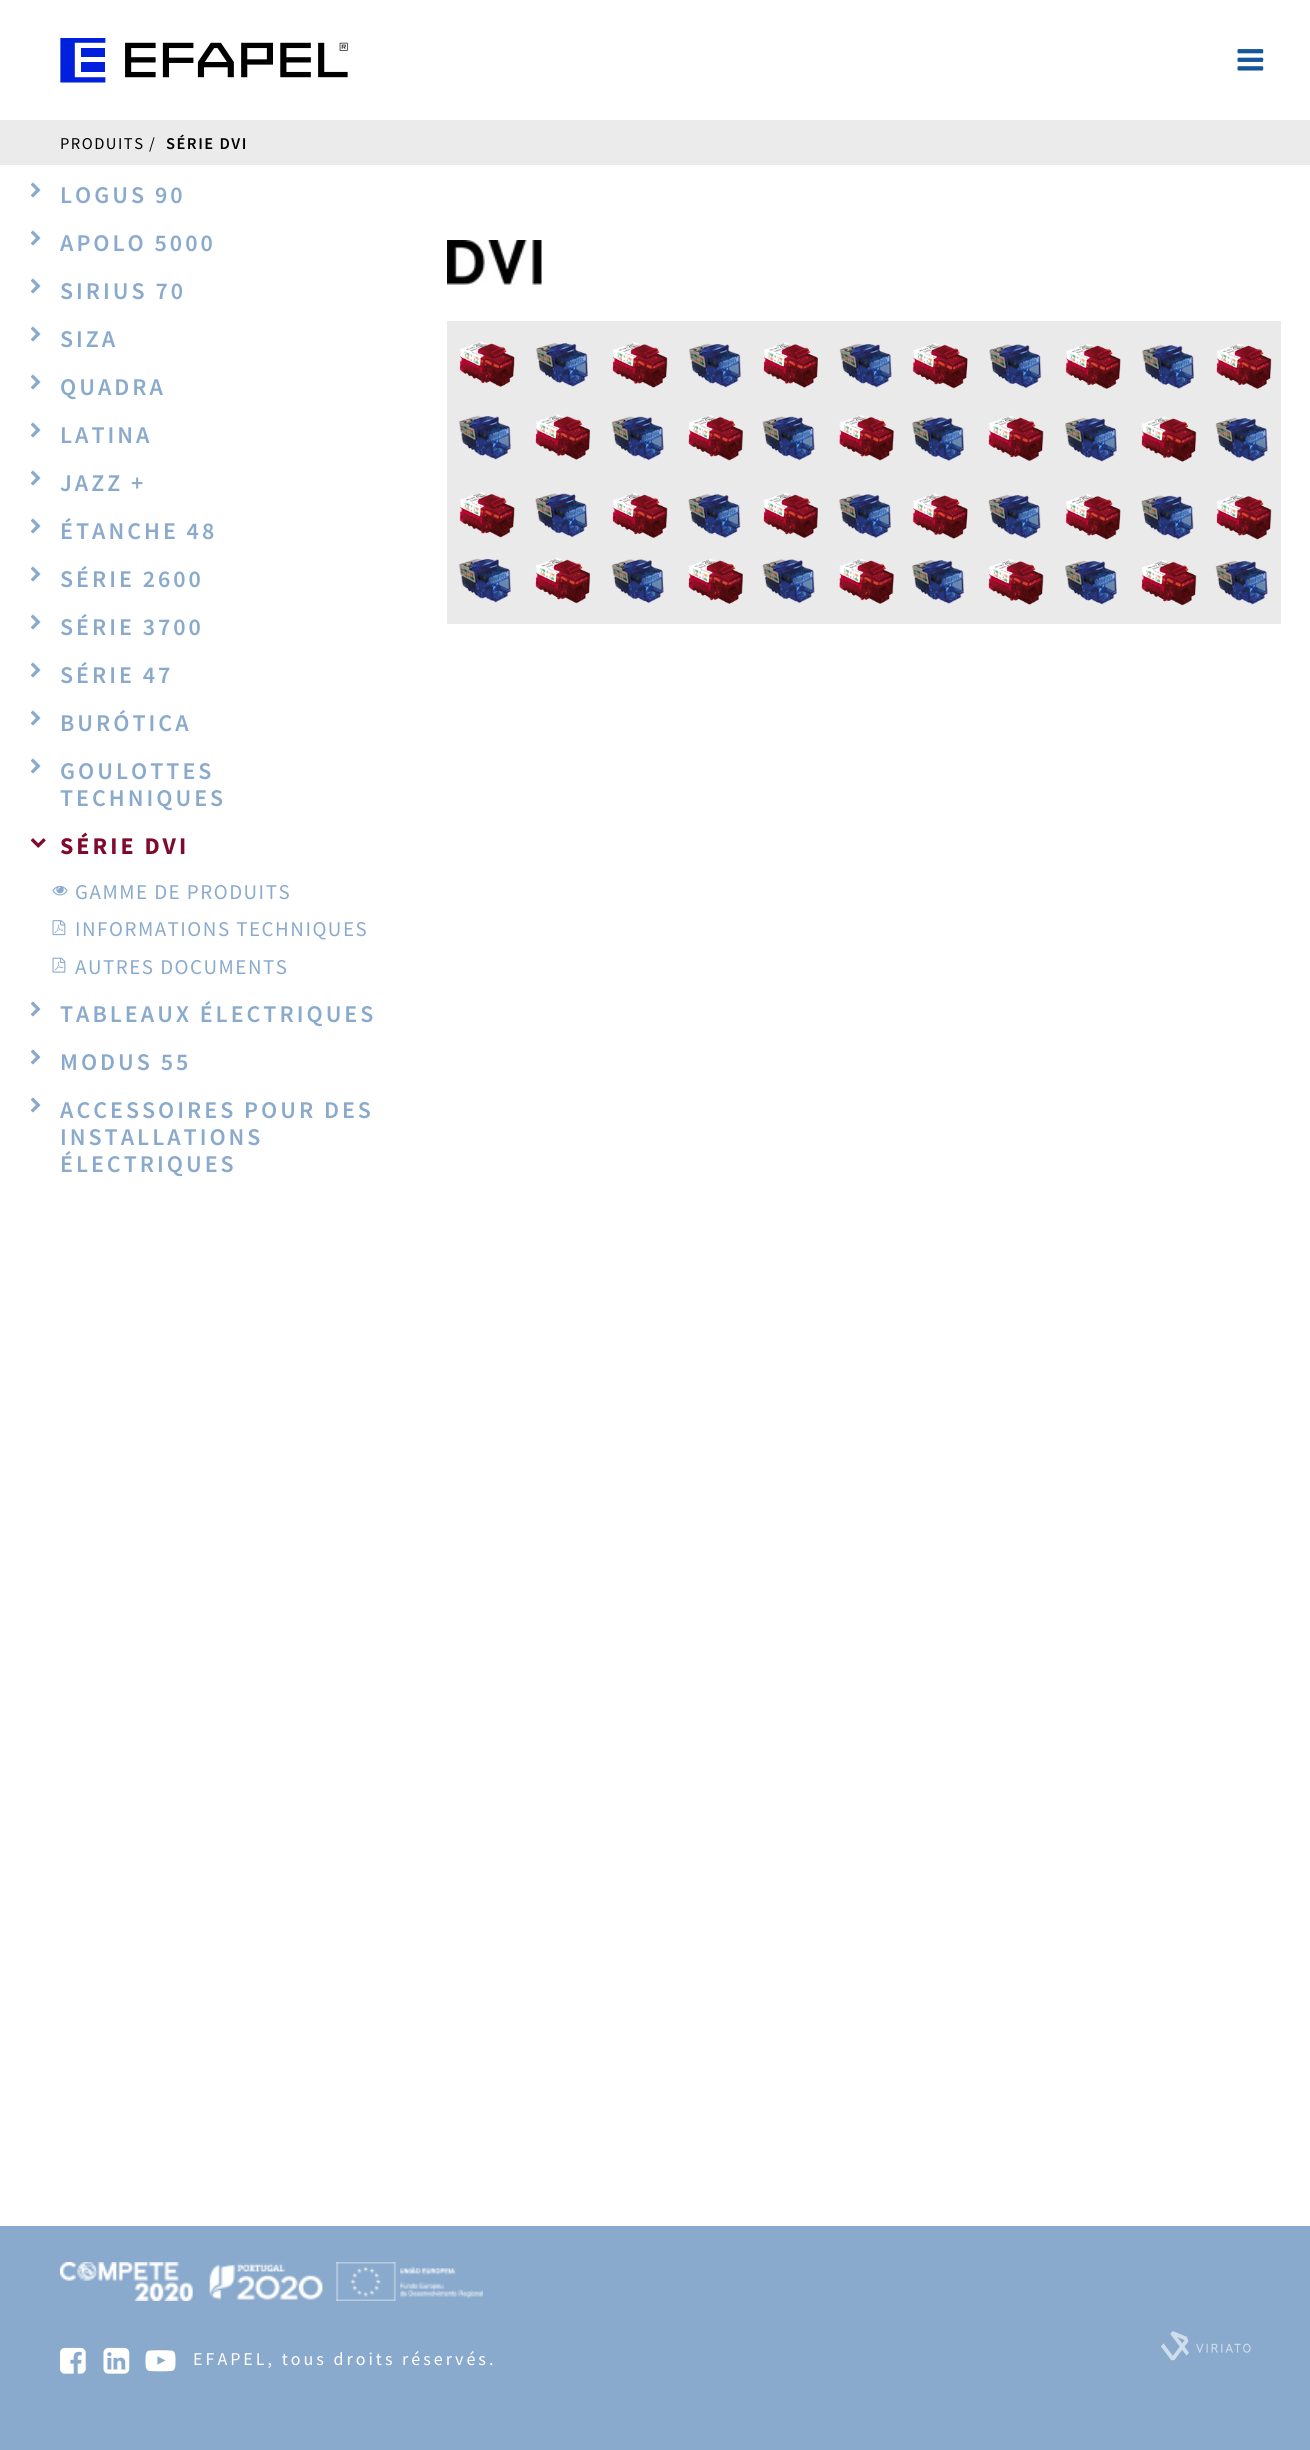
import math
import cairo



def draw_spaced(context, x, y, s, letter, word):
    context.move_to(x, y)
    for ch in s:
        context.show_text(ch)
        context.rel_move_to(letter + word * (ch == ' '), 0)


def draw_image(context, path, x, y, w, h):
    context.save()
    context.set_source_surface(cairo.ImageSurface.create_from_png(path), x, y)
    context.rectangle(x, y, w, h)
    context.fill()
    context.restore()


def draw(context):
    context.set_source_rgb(1, 1, 1)
    context.paint()
    draw_image(context, "images/1.png", 60, 38, 288, 45)
    draw_image(context, "images/2.png", 1237, 49, 27, 22)
    context.set_source_rgb(235 / 255, 235 / 255, 235 / 255)
    context.rectangle(0, 120, 1310, 45)
    context.fill()
    draw_image(context, "images/3.png", 30, 182, 11, 16)
    draw_image(context, "images/3.png", 30, 230, 11, 16)
    draw_image(context, "images/3.png", 30, 278, 11, 16)
    draw_image(context, "images/3.png", 30, 326, 11, 16)
    draw_image(context, "images/3.png", 30, 374, 11, 16)
    draw_image(context, "images/3.png", 30, 422, 11, 16)
    draw_image(context, "images/3.png", 30, 470, 11, 16)
    draw_image(context, "images/3.png", 30, 518, 11, 16)
    draw_image(context, "images/3.png", 30, 566, 11, 16)
    draw_image(context, "images/3.png", 30, 614, 11, 16)
    draw_image(context, "images/3.png", 30, 662, 11, 16)
    draw_image(context, "images/3.png", 30, 710, 11, 16)
    draw_image(context, "images/3.png", 30, 758, 11, 16)
    draw_image(context, "images/4.png", 30, 838, 16, 10)
    draw_image(context, "images/5.png", 52, 885, 16, 11)
    draw_image(context, "images/6.png", 52, 920, 14, 16)
    draw_image(context, "images/7.png", 52, 957, 14, 16)
    draw_image(context, "images/3.png", 30, 1001, 11, 16)
    draw_image(context, "images/3.png", 30, 1049, 11, 16)
    draw_image(context, "images/3.png", 30, 1097, 11, 16)
    draw_image(context, "images/8.png", 447, 240, 95, 45)
    draw_image(context, "images/9.png", 447, 321, 834, 303)
    context.set_source_rgb(138 / 255, 170 / 255, 205 / 255)
    context.rectangle(0, 2226, 1310, 224)
    context.fill()
    draw_image(context, "images/10.png", 60, 2262, 423, 39)
    draw_image(context, "images/11.png", 60, 2347, 26, 27)
    draw_image(context, "images/12.png", 103, 2347, 27, 27)
    draw_image(context, "images/13.png", 145, 2350, 31, 22)
    draw_image(context, "images/14.png", 1161, 2331, 90, 30)
    context.select_font_face("Source Sans Pro")
    context.set_font_size(16.5)
    context.set_source_rgb(0, 0, 0)
    draw_spaced(context, 60, 149, "PRODUITS", 1.5, 0)
    context.move_to(149, 149)
    context.show_text("/")
    context.select_font_face("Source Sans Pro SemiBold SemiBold")
    draw_spaced(context, 166, 149, "SÉRIE DVI", 1.5, 0)
    context.set_font_size(24)
    context.set_source_rgb(138 / 255, 170 / 255, 205 / 255)
    draw_spaced(context, 60, 203, "LOGUS 90", 3, 0)
    draw_spaced(context, 60, 251, "APOLO 5000", 3, 0)
    draw_spaced(context, 60, 299, "SIRIUS 70", 3, 0)
    draw_spaced(context, 60, 347, "SIZA", 3, 0)
    draw_spaced(context, 60, 395, "QUADRA", 3, 0)
    draw_spaced(context, 60, 443, "LATINA", 3, 0)
    draw_spaced(context, 60, 491, "JAZZ +", 3, 0)
    draw_spaced(context, 60, 539, "ÉTANCHE 48", 3, 0)
    draw_spaced(context, 60, 587, "SÉRIE 2600", 3, 0)
    draw_spaced(context, 60, 635, "SÉRIE 3700", 3, 0)
    draw_spaced(context, 60, 683, "SÉRIE 47", 3, 0)
    draw_spaced(context, 60, 731, "BURÓTICA", 3, 0)
    draw_spaced(context, 60, 779, "GOULOTTES", 3, 0)
    draw_spaced(context, 60, 806, "TECHNIQUES", 3, 0)
    context.select_font_face("Source Sans Pro", cairo.FontSlant.NORMAL, cairo.FontWeight.BOLD)
    context.set_source_rgb(128 / 255, 10 / 255, 45 / 255)
    draw_spaced(context, 60, 854, "SÉRIE DVI", 3, 0)
    context.select_font_face("Source Sans Pro")
    context.set_font_size(21)
    context.set_source_rgb(138 / 255, 170 / 255, 205 / 255)
    draw_spaced(context, 75, 899, "GAMME DE PRODUITS", 1.5, 0)
    draw_spaced(context, 75, 936, "INFORMATIONS TECHNIQUES", 1.5, 0)
    draw_spaced(context, 75, 974, "AUTRES DOCUMENTS", 1.5, 0)
    context.select_font_face("Source Sans Pro SemiBold SemiBold")
    context.set_font_size(24)
    draw_spaced(context, 60, 1022, "TABLEAUX ÉLECTRIQUES", 3, 0)
    draw_spaced(context, 60, 1070, "MODUS 55", 3, 0)
    draw_spaced(context, 60, 1118, "ACCESSOIRES POUR DES", 3, 0)
    draw_spaced(context, 60, 1145, "INSTALLATIONS", 3, 0)
    draw_spaced(context, 60, 1172, "ÉLECTRIQUES", 3, 0)
    context.select_font_face("Source Sans Pro")
    context.set_font_size(18)
    context.set_source_rgb(1, 1, 1)
    draw_spaced(context, 193, 2365, "EFAPEL, tous droits réservés.", 3, 0)


surface = cairo.ImageSurface(cairo.Format.RGB24, 1310, 2450)
context = cairo.Context(surface)
options = cairo.FontOptions()
options.set_hint_metrics(cairo.HintMetrics.OFF)
options.set_hint_style(cairo.HintStyle.NONE)
context.set_font_options(options)
context.set_miter_limit(4)
draw(context)
surface.write_to_png("out.png")
